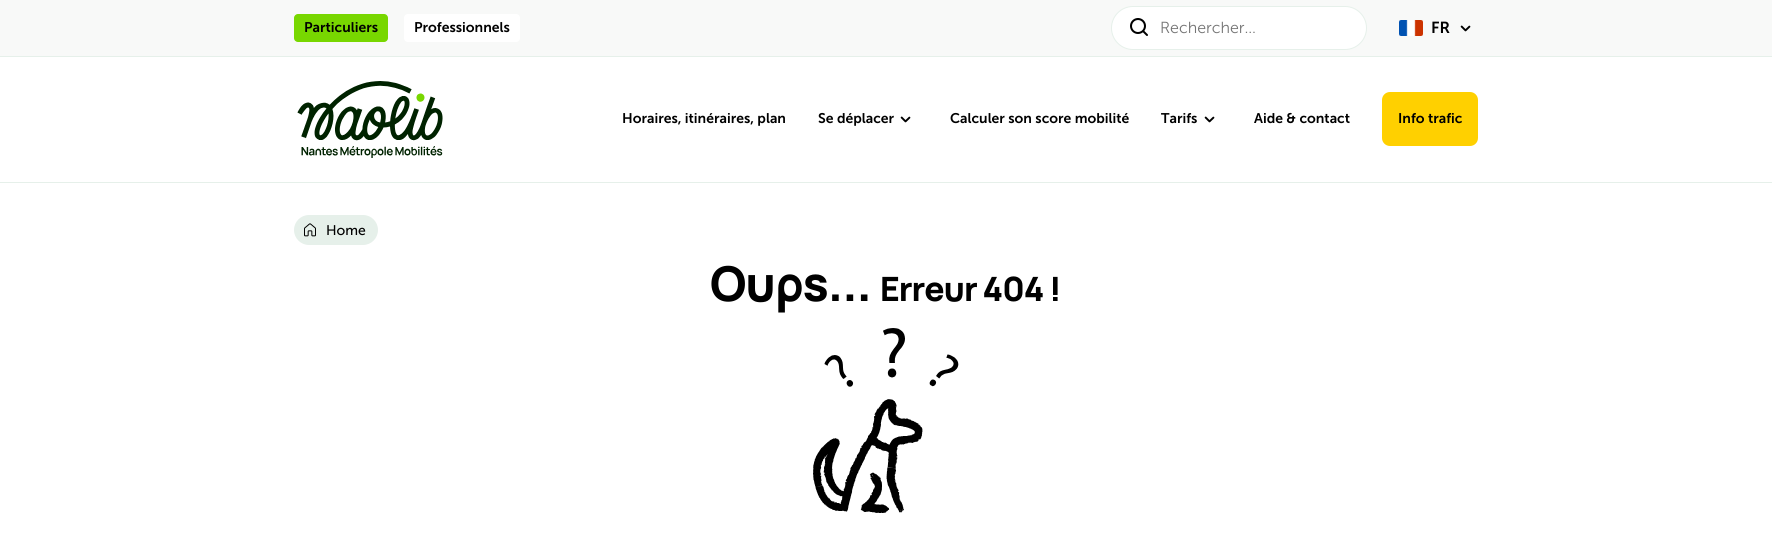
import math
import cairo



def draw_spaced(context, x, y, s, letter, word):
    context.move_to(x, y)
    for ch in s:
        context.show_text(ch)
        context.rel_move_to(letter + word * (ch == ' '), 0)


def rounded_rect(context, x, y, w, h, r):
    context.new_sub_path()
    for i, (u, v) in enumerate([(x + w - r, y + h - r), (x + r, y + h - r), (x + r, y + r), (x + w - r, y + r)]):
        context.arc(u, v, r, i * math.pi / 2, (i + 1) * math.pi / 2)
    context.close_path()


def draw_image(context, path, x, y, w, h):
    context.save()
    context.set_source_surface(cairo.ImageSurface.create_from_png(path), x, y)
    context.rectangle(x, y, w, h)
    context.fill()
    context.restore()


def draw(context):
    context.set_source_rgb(1, 1, 1)
    context.paint()
    context.set_source_rgb(230 / 255, 240 / 255, 234 / 255)
    context.rectangle(0, 182, 1772, 1)
    context.fill()
    context.set_source_rgb(248 / 255, 249 / 255, 248 / 255)
    context.rectangle(0, 0, 1772, 56)
    context.fill()
    context.set_source_rgb(230 / 255, 240 / 255, 234 / 255)
    context.rectangle(0, 56, 1772, 1)
    context.fill()
    context.set_source_rgb(120 / 255, 215 / 255, 0)
    rounded_rect(context, 294, 14, 94, 28, 4)
    context.fill()
    context.set_source_rgb(1, 1, 1)
    rounded_rect(context, 404, 14, 116, 28, 4)
    context.fill()
    rounded_rect(context, 1111.5, 6.5, 255, 43, 21.5)
    context.fill_preserve()
    context.set_source_rgb(230 / 255, 240 / 255, 234 / 255)
    context.set_line_width(1)
    context.stroke()
    draw_image(context, "images/1.png", 1130, 18, 18, 18)
    draw_image(context, "images/2.png", 1399, 20, 24, 16)
    draw_image(context, "images/3.png", 1460, 25, 11, 7)
    draw_image(context, "images/4.png", 297, 81, 146, 77)
    draw_image(context, "images/5.png", 900, 116, 11, 7)
    draw_image(context, "images/5.png", 1204, 116, 11, 7)
    context.set_source_rgb(1, 208 / 255, 0)
    rounded_rect(context, 1382, 92, 96, 54, 8)
    context.fill()
    context.set_source_rgb(230 / 255, 240 / 255, 234 / 255)
    rounded_rect(context, 294, 215, 84, 30, 15)
    context.fill()
    draw_image(context, "images/6.png", 304, 223, 12, 14)
    draw_image(context, "images/7.png", 813, 328, 146, 185)
    context.select_font_face("Museo Sans SemiBold")
    context.set_font_size(14)
    context.set_source_rgb(0, 0, 0)
    context.move_to(304, 32)
    context.show_text("Particuliers")
    context.move_to(414, 32)
    context.show_text("Professionnels")
    context.select_font_face("Museo Sans Light")
    context.set_font_size(16)
    context.set_source_rgb(117 / 255, 117 / 255, 117 / 255)
    context.move_to(1160, 33)
    context.show_text("Rechercher…")
    context.select_font_face("Museo Sans SemiBold")
    context.set_source_rgb(0, 0, 0)
    context.move_to(1431, 33)
    context.show_text("FR")
    context.set_font_size(14)
    context.move_to(622, 123)
    context.show_text("Horaires, itinéraires, plan")
    context.move_to(818, 123)
    context.show_text("Se déplacer")
    context.move_to(950, 123)
    context.show_text("Calculer son score mobilité")
    context.move_to(1161, 123)
    context.show_text("Tarifs")
    context.move_to(1254, 123)
    context.show_text("Aide & contact")
    context.move_to(1398, 123)
    context.show_text("Info trafic")
    context.select_font_face("Museo Sans")
    context.move_to(326, 235)
    context.show_text("Home")
    context.select_font_face("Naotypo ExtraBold")
    context.set_font_size(48)
    draw_spaced(context, 710, 301, "Oups...", -1, 0)
    context.set_font_size(33.5)
    draw_spaced(context, 880, 301, "Erreur 404 !", -1, 0)


surface = cairo.ImageSurface(cairo.Format.RGB24, 1772, 547)
context = cairo.Context(surface)
options = cairo.FontOptions()
options.set_hint_metrics(cairo.HintMetrics.OFF)
options.set_hint_style(cairo.HintStyle.NONE)
context.set_font_options(options)
context.set_miter_limit(4)
draw(context)
surface.write_to_png("out.png")
